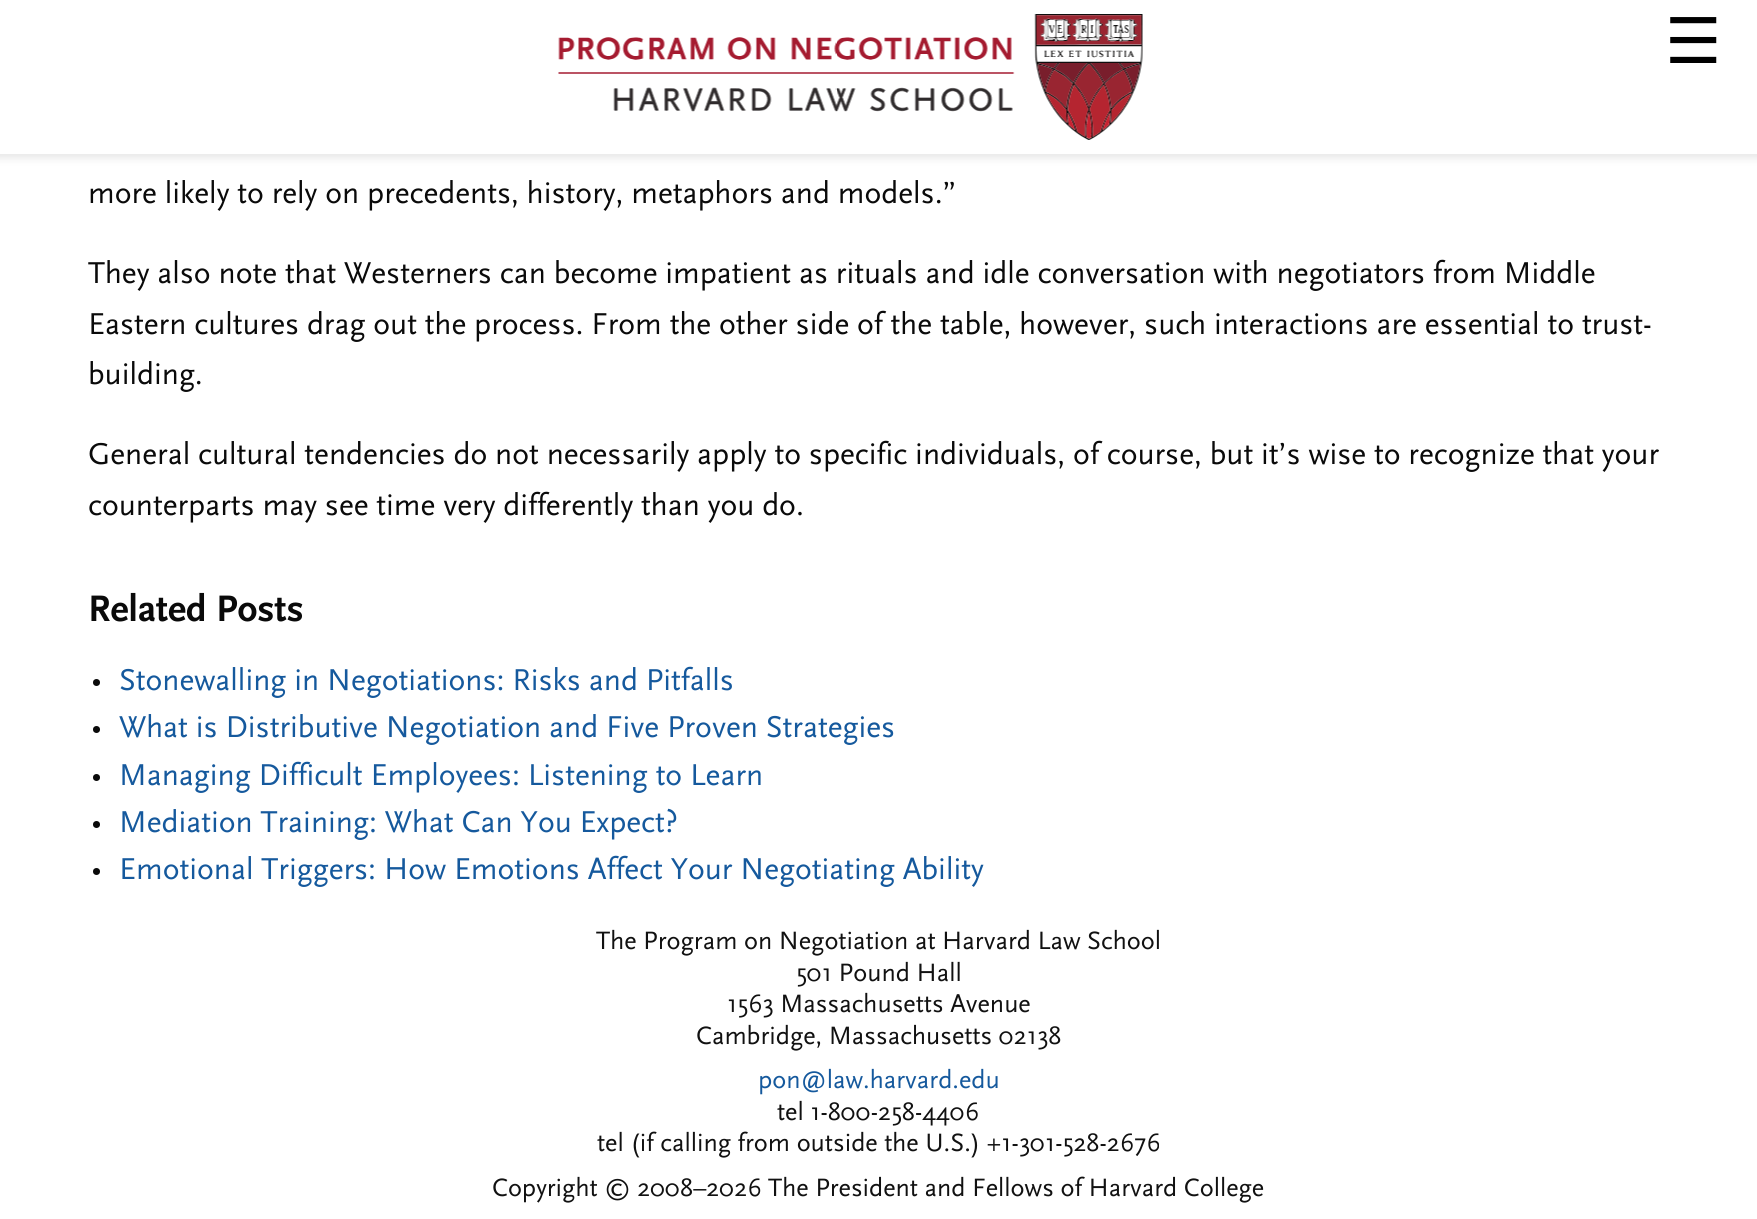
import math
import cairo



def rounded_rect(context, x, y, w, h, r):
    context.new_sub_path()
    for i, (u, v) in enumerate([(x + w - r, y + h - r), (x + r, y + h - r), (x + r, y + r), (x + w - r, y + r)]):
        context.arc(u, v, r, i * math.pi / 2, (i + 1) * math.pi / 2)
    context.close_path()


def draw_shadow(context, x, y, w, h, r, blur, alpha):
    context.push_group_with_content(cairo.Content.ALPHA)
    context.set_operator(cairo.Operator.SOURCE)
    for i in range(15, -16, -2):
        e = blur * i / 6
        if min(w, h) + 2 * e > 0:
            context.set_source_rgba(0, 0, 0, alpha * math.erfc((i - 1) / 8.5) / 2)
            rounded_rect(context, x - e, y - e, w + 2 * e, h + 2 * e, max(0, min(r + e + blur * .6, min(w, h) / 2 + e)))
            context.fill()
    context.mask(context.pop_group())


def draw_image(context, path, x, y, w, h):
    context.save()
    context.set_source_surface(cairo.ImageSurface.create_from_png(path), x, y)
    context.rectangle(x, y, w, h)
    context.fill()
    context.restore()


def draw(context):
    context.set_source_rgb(1, 1, 1)
    context.paint()
    context.set_source_rgb(0, 0, 0)
    draw_shadow(context, -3, -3, 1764, 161, 0, 4.5, 0.1)
    context.set_source_rgb(1, 1, 1)
    context.rectangle(0, 0, 1757, 154)
    context.fill()
    draw_image(context, "images/1.png", 558, 14, 585, 126)
    context.set_source_rgb(10 / 255, 10 / 255, 10 / 255)
    context.arc(96.5, 682.5, 3.5, 0, 2 * math.pi)
    context.fill()
    context.arc(96.5, 729.5, 3.5, 0, 2 * math.pi)
    context.fill()
    context.arc(96.5, 777.5, 3.5, 0, 2 * math.pi)
    context.fill()
    context.arc(96.5, 824.5, 3.5, 0, 2 * math.pi)
    context.fill()
    context.arc(96.5, 871.5, 3.5, 0, 2 * math.pi)
    context.fill()
    context.select_font_face("DejaVu Sans")
    context.set_font_size(63)
    context.set_source_rgb(0, 0, 0)
    context.move_to(1665, 63)
    context.show_text("☰")
    context.select_font_face("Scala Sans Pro")
    context.set_font_size(31.5)
    context.set_source_rgb(10 / 255, 10 / 255, 10 / 255)
    context.move_to(88, 203)
    context.show_text("more likely to rely on precedents, history, metaphors and models.”")
    context.move_to(88, 283)
    context.show_text("They also note that Westerners can become impatient as rituals and idle conversation with negotiators from Middle")
    context.move_to(88, 334)
    context.show_text("Eastern cultures drag out the process. From the other side of the table, however, such interactions are essential to trust-")
    context.move_to(88, 384)
    context.show_text("building.")
    context.move_to(88, 464)
    context.show_text("General cultural tendencies do not necessarily apply to specific individuals, of course, but it’s wise to recognize that your")
    context.move_to(88, 515)
    context.show_text("counterparts may see time very differently than you do.")
    context.select_font_face("Scala Sans Pro", cairo.FontSlant.NORMAL, cairo.FontWeight.BOLD)
    context.set_font_size(38.5)
    context.move_to(88, 621)
    context.show_text("Related Posts")
    context.select_font_face("Scala Sans Pro")
    context.set_font_size(31.5)
    context.set_source_rgb(21 / 255, 89 / 255, 157 / 255)
    context.move_to(119, 690)
    context.show_text("Stonewalling in Negotiations: Risks and Pitfalls")
    context.move_to(119, 737)
    context.show_text("What is Distributive Negotiation and Five Proven Strategies")
    context.move_to(119, 785)
    context.show_text("Managing Difficult Employees: Listening to Learn")
    context.move_to(119, 832)
    context.show_text("Mediation Training: What Can You Expect?")
    context.move_to(119, 879)
    context.show_text("Emotional Triggers: How Emotions Affect Your Negotiating Ability")
    context.set_font_size(26.25)
    context.set_source_rgb(17 / 255, 17 / 255, 17 / 255)
    context.move_to(596, 949)
    context.show_text("The Program on Negotiation at Harvard Law School")
    context.move_to(796, 981)
    context.show_text("501 Pound Hall")
    context.move_to(727, 1012)
    context.show_text("1563 Massachusetts Avenue")
    context.move_to(696, 1044)
    context.show_text("Cambridge, Massachusetts 02138")
    context.set_source_rgb(21 / 255, 89 / 255, 157 / 255)
    context.move_to(758, 1088)
    context.show_text("pon@law.harvard.edu")
    context.set_source_rgb(17 / 255, 17 / 255, 17 / 255)
    context.move_to(777, 1120)
    context.show_text("tel 1-800-258-4406")
    context.move_to(597, 1151)
    context.show_text("tel (if calling from outside the U.S.) +1-301-528-2676")
    context.move_to(492, 1196)
    context.show_text("Copyright © 2008–2026 The President and Fellows of Harvard College")


surface = cairo.ImageSurface(cairo.Format.RGB24, 1757, 1219)
context = cairo.Context(surface)
options = cairo.FontOptions()
options.set_hint_metrics(cairo.HintMetrics.OFF)
options.set_hint_style(cairo.HintStyle.NONE)
context.set_font_options(options)
context.set_miter_limit(4)
draw(context)
surface.write_to_png("out.png")
